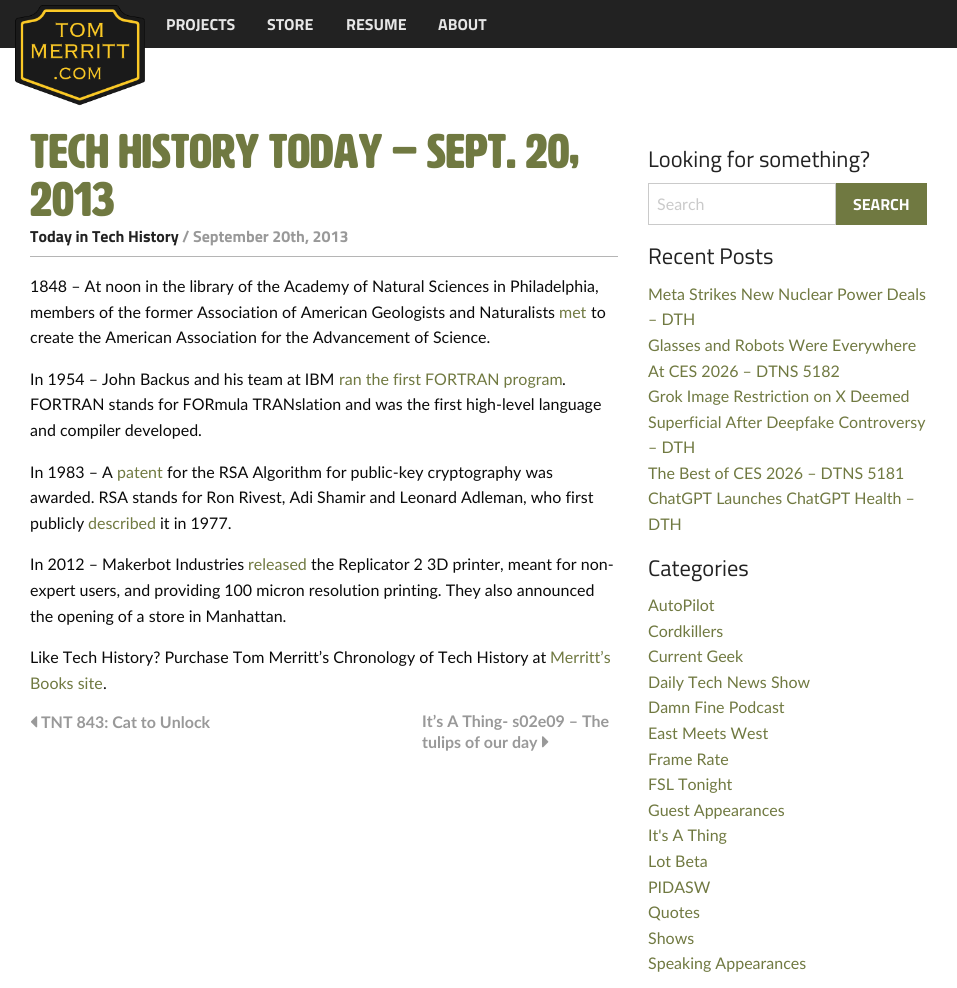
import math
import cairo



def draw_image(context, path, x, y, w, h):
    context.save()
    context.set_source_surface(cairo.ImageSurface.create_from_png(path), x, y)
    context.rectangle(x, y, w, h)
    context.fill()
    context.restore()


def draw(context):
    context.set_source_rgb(1, 1, 1)
    context.paint()
    context.set_source_rgb(34 / 255, 34 / 255, 34 / 255)
    context.rectangle(0, 0, 957, 48)
    context.fill()
    draw_image(context, "images/1.png", 15, 5, 130, 101)
    context.set_source_rgb(181 / 255, 181 / 255, 181 / 255)
    context.rectangle(30, 256, 588, 1)
    context.fill()
    draw_image(context, "images/2.png", 31, 716, 7, 12)
    draw_image(context, "images/3.png", 542, 736, 7, 12)
    context.rectangle(648.5, 183.5, 187, 41)
    context.set_source_rgb(202 / 255, 202 / 255, 202 / 255)
    context.set_line_width(1)
    context.stroke()
    context.set_source_rgb(112 / 255, 121 / 255, 65 / 255)
    context.rectangle(836, 183, 91, 42)
    context.fill()
    context.select_font_face("Titillium Web", cairo.FontSlant.NORMAL, cairo.FontWeight.BOLD)
    context.set_font_size(16)
    context.set_source_rgb(230 / 255, 230 / 255, 230 / 255)
    context.move_to(166, 30)
    context.show_text("PROJECTS")
    context.move_to(267, 30)
    context.show_text("STORE")
    context.move_to(346, 30)
    context.show_text("RESUME")
    context.move_to(438, 30)
    context.show_text("ABOUT")
    context.select_font_face("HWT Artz", cairo.FontSlant.NORMAL, cairo.FontWeight.BOLD)
    context.set_font_size(48)
    context.set_source_rgb(112 / 255, 121 / 255, 65 / 255)
    context.move_to(30, 168)
    context.show_text("Tech History Today – Sept. 20,")
    context.move_to(30, 216)
    context.show_text("2013")
    context.select_font_face("Titillium Web", cairo.FontSlant.NORMAL, cairo.FontWeight.BOLD)
    context.set_font_size(16)
    context.set_source_rgb(34 / 255, 34 / 255, 34 / 255)
    context.move_to(30, 242)
    context.show_text("Today in Tech History")
    context.set_source_rgb(153 / 255, 153 / 255, 153 / 255)
    context.move_to(182, 242)
    context.show_text("/ September 20th, 2013")
    context.select_font_face("Lato")
    context.set_source_rgb(10 / 255, 10 / 255, 10 / 255)
    context.move_to(30, 292)
    context.show_text("1848 – At noon in the library of the Academy of Natural Sciences in Philadelphia,")
    context.move_to(30, 318)
    context.show_text("members of the former Association of American Geologists and Naturalists")
    context.set_source_rgb(112 / 255, 121 / 255, 65 / 255)
    context.move_to(559, 318)
    context.show_text("met")
    context.set_source_rgb(10 / 255, 10 / 255, 10 / 255)
    context.move_to(591, 318)
    context.show_text("to")
    context.move_to(30, 343)
    context.show_text("create the American Association for the Advancement of Science.")
    context.move_to(30, 385)
    context.show_text("In 1954 – John Backus and his team at IBM")
    context.set_source_rgb(112 / 255, 121 / 255, 65 / 255)
    context.move_to(339, 385)
    context.show_text("ran the first FORTRAN program")
    context.set_source_rgb(10 / 255, 10 / 255, 10 / 255)
    context.move_to(562, 385)
    context.show_text(".")
    context.move_to(30, 410)
    context.show_text("FORTRAN stands for FORmula TRANslation and was the first high-level language")
    context.move_to(30, 436)
    context.show_text("and compiler developed.")
    context.move_to(30, 478)
    context.show_text("In 1983 – A")
    context.set_source_rgb(112 / 255, 121 / 255, 65 / 255)
    context.move_to(117, 478)
    context.show_text("patent")
    context.set_source_rgb(10 / 255, 10 / 255, 10 / 255)
    context.move_to(167, 478)
    context.show_text("for the RSA Algorithm for public-key cryptography was")
    context.move_to(30, 503)
    context.show_text("awarded. RSA stands for Ron Rivest, Adi Shamir and Leonard Adleman, who first")
    context.move_to(30, 529)
    context.show_text("publicly")
    context.set_source_rgb(112 / 255, 121 / 255, 65 / 255)
    context.move_to(88, 529)
    context.show_text("described")
    context.set_source_rgb(10 / 255, 10 / 255, 10 / 255)
    context.move_to(160, 529)
    context.show_text("it in 1977.")
    context.move_to(30, 570)
    context.show_text("In 2012 – Makerbot Industries")
    context.set_source_rgb(112 / 255, 121 / 255, 65 / 255)
    context.move_to(248, 570)
    context.show_text("released")
    context.set_source_rgb(10 / 255, 10 / 255, 10 / 255)
    context.move_to(311, 570)
    context.show_text("the Replicator 2 3D printer, meant for non-")
    context.move_to(30, 596)
    context.show_text("expert users, and providing 100 micron resolution printing. They also announced")
    context.move_to(30, 622)
    context.show_text("the opening of a store in Manhattan.")
    context.move_to(30, 663)
    context.show_text("Like Tech History? Purchase Tom Merritt’s Chronology of Tech History at")
    context.set_source_rgb(112 / 255, 121 / 255, 65 / 255)
    context.move_to(550, 663)
    context.show_text("Merritt’s")
    context.move_to(30, 689)
    context.show_text("Books site")
    context.set_source_rgb(10 / 255, 10 / 255, 10 / 255)
    context.move_to(103, 689)
    context.show_text(".")
    context.select_font_face("Lato", cairo.FontSlant.NORMAL, cairo.FontWeight.BOLD)
    context.set_source_rgb(153 / 255, 153 / 255, 153 / 255)
    context.move_to(41, 728)
    context.show_text("TNT 843: Cat to Unlock")
    context.move_to(422, 727)
    context.show_text("It’s A Thing- s02e09 – The")
    context.move_to(422, 748)
    context.show_text("tulips of our day")
    context.select_font_face("Titillium Web")
    context.set_font_size(22.5)
    context.set_source_rgb(34 / 255, 34 / 255, 34 / 255)
    context.move_to(648, 167)
    context.show_text("Looking for something?")
    context.select_font_face("Lato")
    context.set_font_size(16)
    context.set_source_rgb(202 / 255, 202 / 255, 202 / 255)
    context.move_to(657, 210)
    context.show_text("Search")
    context.select_font_face("Titillium Web", cairo.FontSlant.NORMAL, cairo.FontWeight.BOLD)
    context.set_source_rgb(254 / 255, 254 / 255, 254 / 255)
    context.move_to(853, 210)
    context.show_text("SEARCH")
    context.select_font_face("Titillium Web")
    context.set_font_size(22.5)
    context.set_source_rgb(34 / 255, 34 / 255, 34 / 255)
    context.move_to(648, 264)
    context.show_text("Recent Posts")
    context.select_font_face("Lato")
    context.set_font_size(16)
    context.set_source_rgb(112 / 255, 121 / 255, 65 / 255)
    context.move_to(648, 300)
    context.show_text("Meta Strikes New Nuclear Power Deals")
    context.move_to(648, 325)
    context.show_text("– DTH")
    context.move_to(648, 351)
    context.show_text("Glasses and Robots Were Everywhere")
    context.move_to(648, 377)
    context.show_text("At CES 2026 – DTNS 5182")
    context.move_to(648, 402)
    context.show_text("Grok Image Restriction on X Deemed")
    context.move_to(648, 428)
    context.show_text("Superficial After Deepfake Controversy")
    context.move_to(648, 453)
    context.show_text("– DTH")
    context.move_to(648, 479)
    context.show_text("The Best of CES 2026 – DTNS 5181")
    context.move_to(648, 504)
    context.show_text("ChatGPT Launches ChatGPT Health –")
    context.move_to(648, 530)
    context.show_text("DTH")
    context.select_font_face("Titillium Web")
    context.set_font_size(22.5)
    context.set_source_rgb(34 / 255, 34 / 255, 34 / 255)
    context.move_to(648, 576)
    context.show_text("Categories")
    context.select_font_face("Lato")
    context.set_font_size(16)
    context.set_source_rgb(112 / 255, 121 / 255, 65 / 255)
    context.move_to(648, 611)
    context.show_text("AutoPilot")
    context.move_to(648, 637)
    context.show_text("Cordkillers")
    context.move_to(648, 662)
    context.show_text("Current Geek")
    context.move_to(648, 688)
    context.show_text("Daily Tech News Show")
    context.move_to(648, 713)
    context.show_text("Damn Fine Podcast")
    context.move_to(648, 739)
    context.show_text("East Meets West")
    context.move_to(648, 765)
    context.show_text("Frame Rate")
    context.move_to(648, 790)
    context.show_text("FSL Tonight")
    context.move_to(648, 816)
    context.show_text("Guest Appearances")
    context.move_to(648, 841)
    context.show_text("It's A Thing")
    context.move_to(648, 867)
    context.show_text("Lot Beta")
    context.move_to(648, 893)
    context.show_text("PIDASW")
    context.move_to(648, 918)
    context.show_text("Quotes")
    context.move_to(648, 944)
    context.show_text("Shows")
    context.move_to(648, 969)
    context.show_text("Speaking Appearances")


surface = cairo.ImageSurface(cairo.Format.RGB24, 957, 988)
context = cairo.Context(surface)
options = cairo.FontOptions()
options.set_hint_metrics(cairo.HintMetrics.OFF)
options.set_hint_style(cairo.HintStyle.NONE)
context.set_font_options(options)
context.set_miter_limit(4)
draw(context)
surface.write_to_png("out.png")
